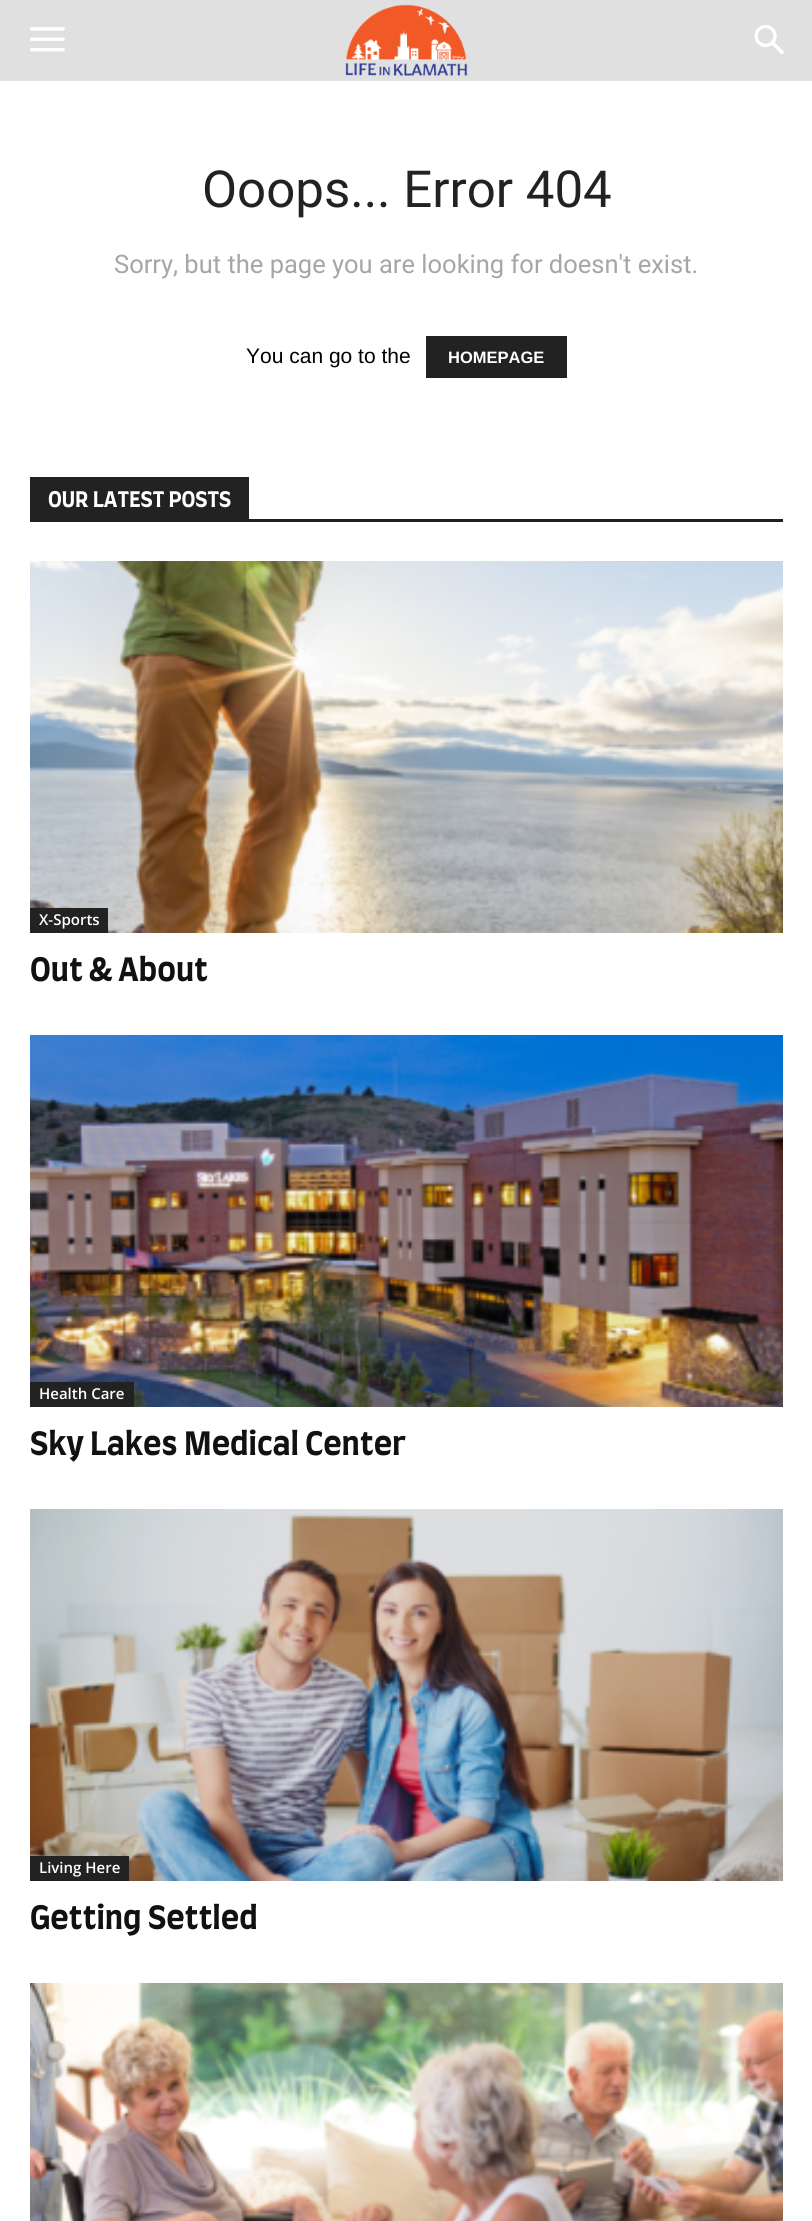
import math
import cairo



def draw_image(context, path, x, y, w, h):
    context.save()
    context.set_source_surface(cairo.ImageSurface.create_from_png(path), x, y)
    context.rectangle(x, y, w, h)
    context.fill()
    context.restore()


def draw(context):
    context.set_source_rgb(1, 1, 1)
    context.paint()
    context.set_source_rgb(224 / 255, 224 / 255, 224 / 255)
    context.rectangle(0, 0, 812, 81)
    context.fill()
    draw_image(context, "images/1.png", 30, 27, 35, 25)
    draw_image(context, "images/2.png", 345, 4, 123, 72)
    draw_image(context, "images/3.png", 754, 25, 30, 29)
    context.set_source_rgb(34 / 255, 34 / 255, 34 / 255)
    context.rectangle(426, 336, 141, 42)
    context.fill()
    context.rectangle(30, 519, 753, 3)
    context.fill()
    context.rectangle(30, 477, 219, 42)
    context.fill()
    draw_image(context, "images/4.png", 30, 561, 753, 372)
    context.rectangle(30, 908, 78, 25)
    context.fill()
    draw_image(context, "images/5.png", 30, 1035, 753, 372)
    context.rectangle(30, 1382, 104, 25)
    context.fill()
    draw_image(context, "images/6.png", 30, 1509, 753, 372)
    context.rectangle(30, 1856, 99, 25)
    context.fill()
    draw_image(context, "images/7.png", 30, 1983, 753, 238)
    context.select_font_face("Roboto")
    context.set_font_size(51)
    context.move_to(202, 207)
    context.show_text("Ooops... Error 404")
    context.set_font_size(25.5)
    context.set_source_rgb(166 / 255, 166 / 255, 166 / 255)
    context.move_to(114, 273)
    context.show_text("Sorry, but the page you are looking for doesn't exist.")
    context.select_font_face("Liberation Sans")
    context.set_font_size(21)
    context.set_source_rgb(0, 0, 0)
    context.move_to(246, 363)
    context.show_text("You can go to the")
    context.select_font_face("Liberation Sans", cairo.FontSlant.NORMAL, cairo.FontWeight.BOLD)
    context.set_font_size(16.5)
    context.set_source_rgb(1, 1, 1)
    context.move_to(448, 363)
    context.show_text("HOMEPAGE")
    context.select_font_face("Farro", cairo.FontSlant.NORMAL, cairo.FontWeight.BOLD)
    context.set_font_size(21)
    context.move_to(48, 507)
    context.show_text("OUR LATEST POSTS")
    context.select_font_face("Open Sans SemiBold")
    context.set_font_size(15)
    context.move_to(39, 925)
    context.show_text("X-Sports")
    context.select_font_face("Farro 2", cairo.FontSlant.NORMAL, cairo.FontWeight.BOLD)
    context.set_font_size(31.5)
    context.set_source_rgb(17 / 255, 17 / 255, 17 / 255)
    context.move_to(30, 981)
    context.show_text("Out & About")
    context.select_font_face("Open Sans SemiBold")
    context.set_font_size(15)
    context.set_source_rgb(1, 1, 1)
    context.move_to(39, 1399)
    context.show_text("Health Care")
    context.select_font_face("Farro 2", cairo.FontSlant.NORMAL, cairo.FontWeight.BOLD)
    context.set_font_size(31.5)
    context.set_source_rgb(17 / 255, 17 / 255, 17 / 255)
    context.move_to(30, 1455)
    context.show_text("Sky Lakes Medical Center")
    context.select_font_face("Open Sans SemiBold")
    context.set_font_size(15)
    context.set_source_rgb(1, 1, 1)
    context.move_to(39, 1873)
    context.show_text("Living Here")
    context.select_font_face("Farro 2", cairo.FontSlant.NORMAL, cairo.FontWeight.BOLD)
    context.set_font_size(31.5)
    context.set_source_rgb(17 / 255, 17 / 255, 17 / 255)
    context.move_to(30, 1929)
    context.show_text("Getting Settled")


surface = cairo.ImageSurface(cairo.Format.RGB24, 812, 2221)
context = cairo.Context(surface)
options = cairo.FontOptions()
options.set_hint_metrics(cairo.HintMetrics.OFF)
options.set_hint_style(cairo.HintStyle.NONE)
context.set_font_options(options)
context.set_miter_limit(4)
draw(context)
surface.write_to_png("out.png")
